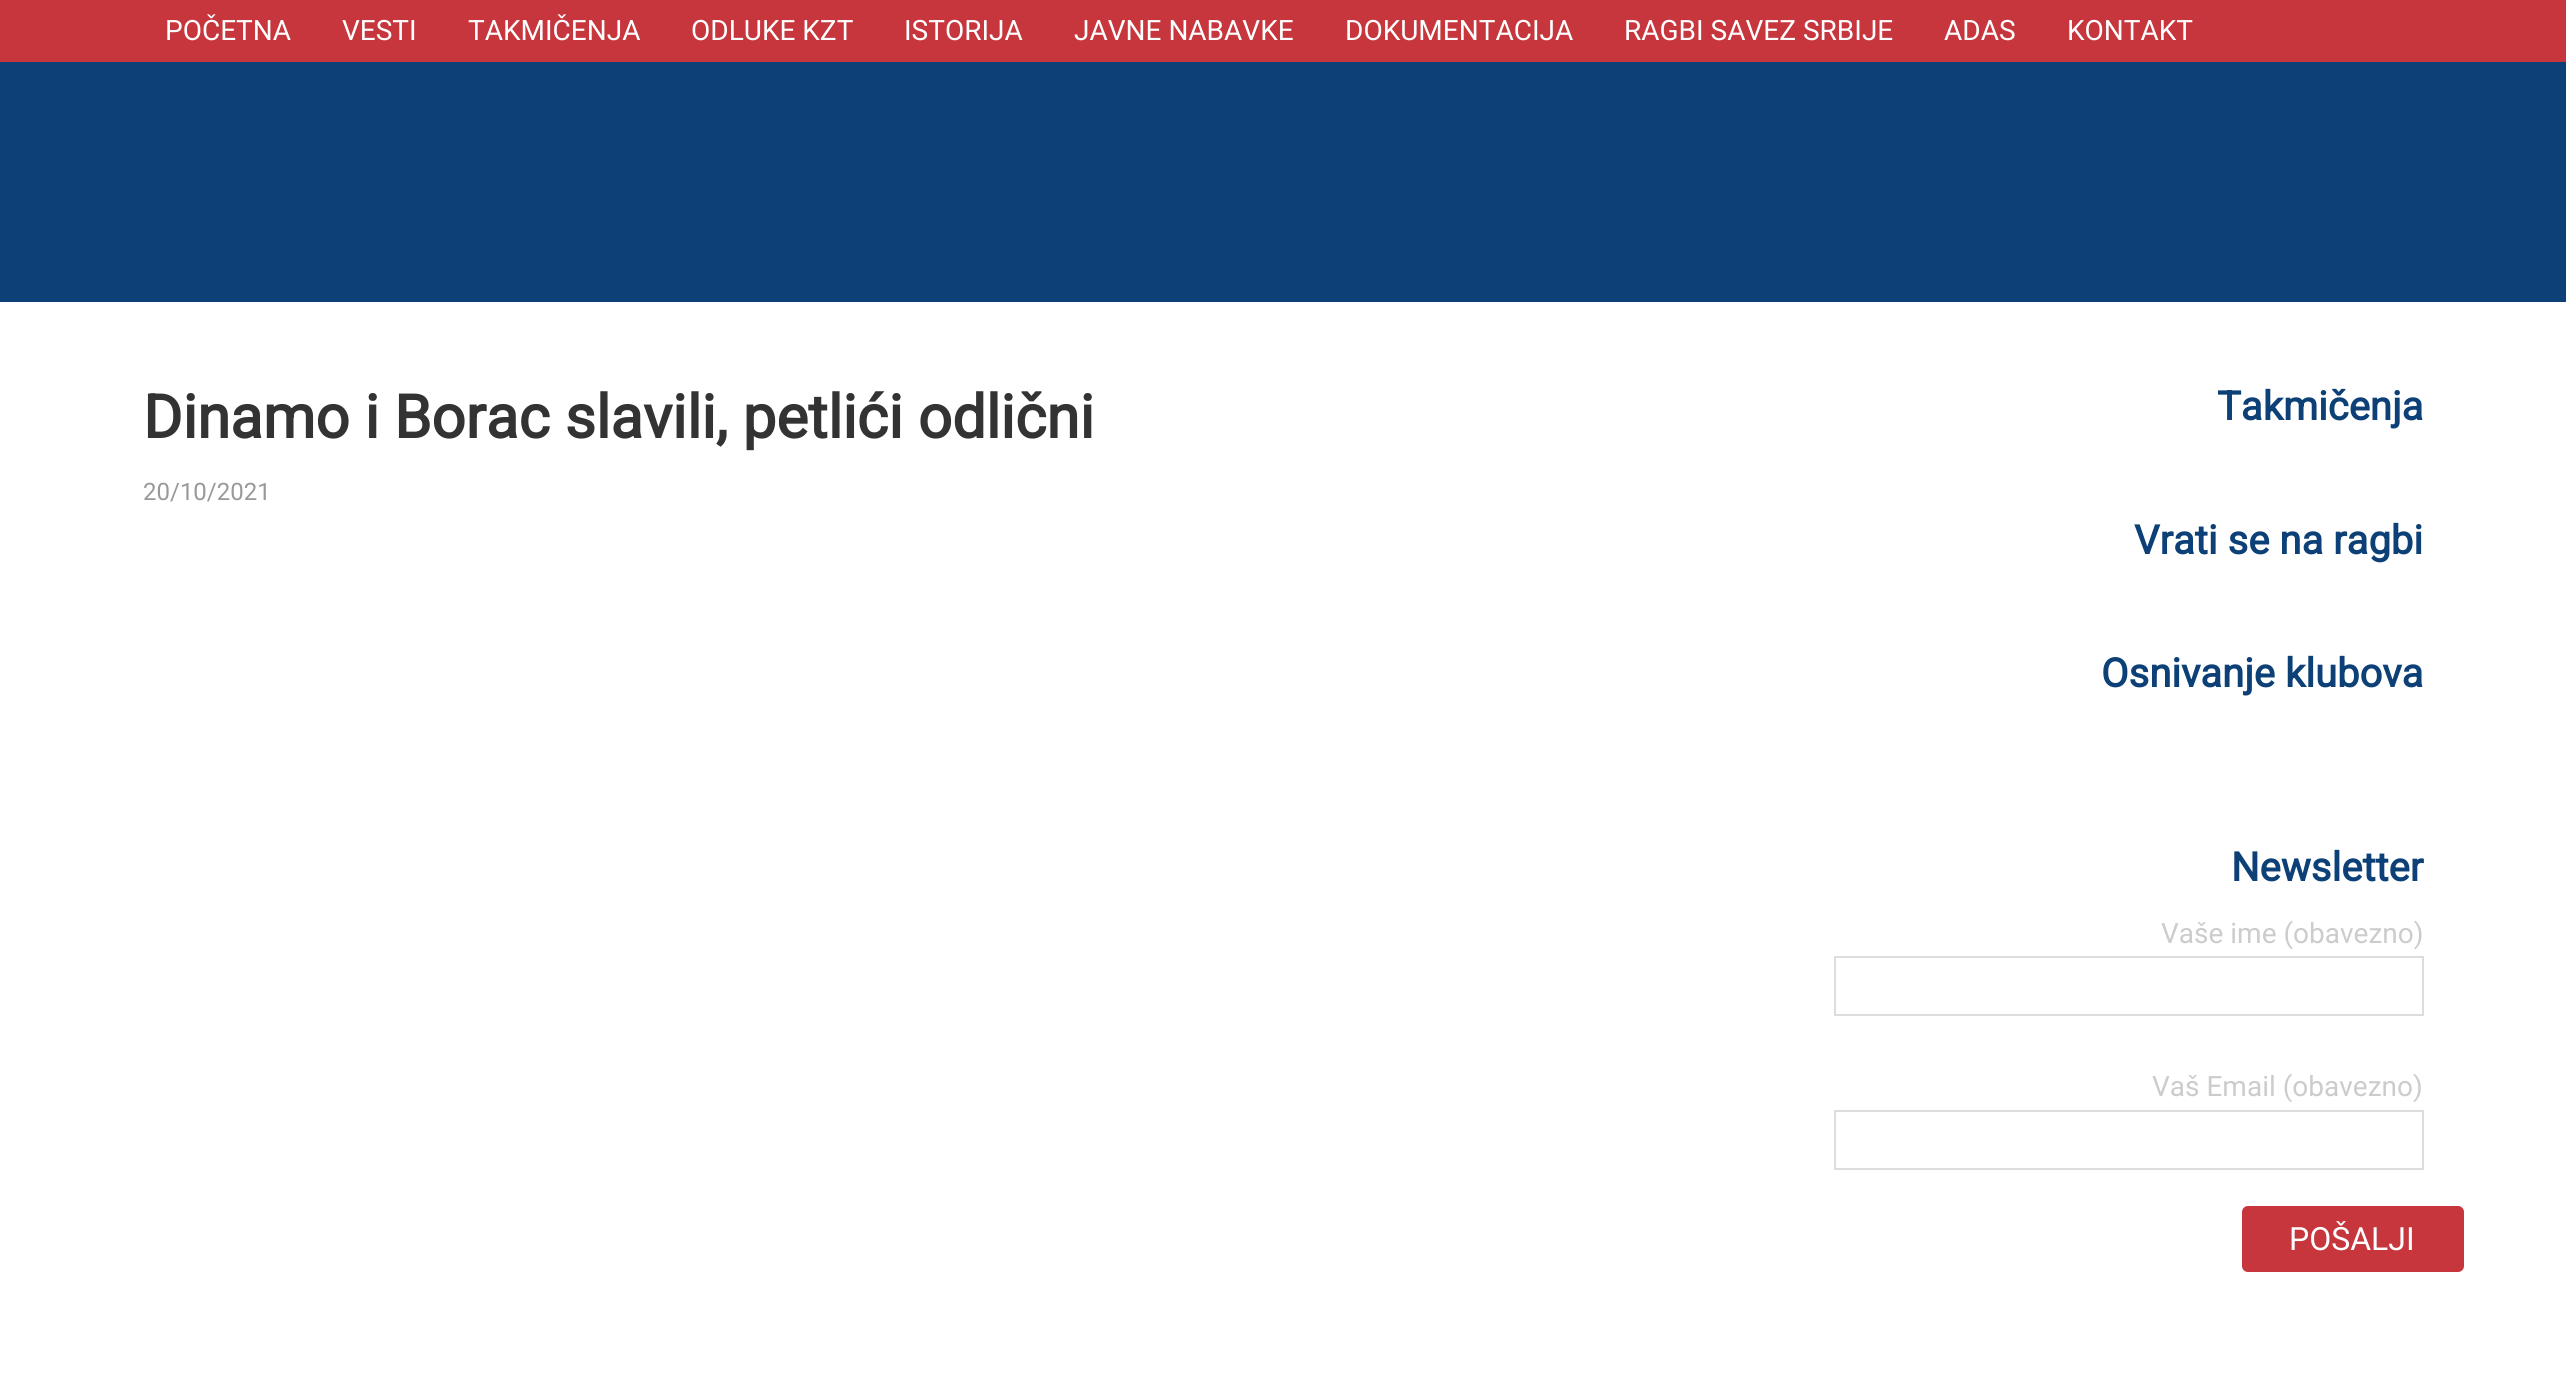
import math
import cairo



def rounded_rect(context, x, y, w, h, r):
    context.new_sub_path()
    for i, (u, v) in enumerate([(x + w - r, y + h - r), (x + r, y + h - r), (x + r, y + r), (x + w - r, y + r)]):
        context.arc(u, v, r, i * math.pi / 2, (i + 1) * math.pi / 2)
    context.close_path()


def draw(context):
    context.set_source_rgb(1, 1, 1)
    context.paint()
    context.set_source_rgb(198 / 255, 54 / 255, 60 / 255)
    context.rectangle(0, 0, 2566, 62)
    context.fill()
    context.set_source_rgb(12 / 255, 64 / 255, 118 / 255)
    context.rectangle(0, 62, 2566, 240)
    context.fill()
    context.rectangle(1835, 957, 588, 58)
    context.set_source_rgb(221 / 255, 221 / 255, 221 / 255)
    context.stroke()
    context.rectangle(1835, 1111, 588, 58)
    context.stroke()
    context.set_source_rgb(198 / 255, 54 / 255, 60 / 255)
    rounded_rect(context, 2242, 1206, 222, 66, 6)
    context.fill()
    context.select_font_face("Roboto")
    context.set_font_size(28)
    context.set_source_rgb(1, 1, 1)
    context.move_to(165, 40)
    context.show_text("POČETNA")
    context.move_to(342, 40)
    context.show_text("VESTI")
    context.move_to(468, 40)
    context.show_text("TAKMIČENJA")
    context.move_to(691, 40)
    context.show_text("ODLUKE KZT")
    context.move_to(904, 40)
    context.show_text("ISTORIJA")
    context.move_to(1074, 40)
    context.show_text("JAVNE NABAVKE")
    context.move_to(1345, 40)
    context.show_text("DOKUMENTACIJA")
    context.move_to(1624, 40)
    context.show_text("RAGBI SAVEZ SRBIJE")
    context.move_to(1944, 40)
    context.show_text("ADAS")
    context.move_to(2067, 40)
    context.show_text("KONTAKT")
    context.select_font_face("Roboto", cairo.FontSlant.NORMAL, cairo.FontWeight.BOLD)
    context.set_font_size(60)
    context.set_source_rgb(51 / 255, 51 / 255, 51 / 255)
    context.move_to(143, 438)
    context.show_text("Dinamo i Borac slavili, petlići odlični")
    context.select_font_face("Roboto")
    context.set_font_size(24)
    context.set_source_rgb(153 / 255, 153 / 255, 153 / 255)
    context.move_to(143, 500)
    context.show_text("20/10/2021")
    context.select_font_face("Roboto", cairo.FontSlant.NORMAL, cairo.FontWeight.BOLD)
    context.set_font_size(40)
    context.set_source_rgb(12 / 255, 64 / 255, 118 / 255)
    context.move_to(2217, 420)
    context.show_text("Takmičenja")
    context.move_to(2134, 554)
    context.show_text("Vrati se na ragbi")
    context.move_to(2101, 687)
    context.show_text("Osnivanje klubova")
    context.move_to(2231, 881)
    context.show_text("Newsletter")
    context.select_font_face("Roboto")
    context.set_font_size(28)
    context.set_source_rgb(204 / 255, 204 / 255, 204 / 255)
    context.move_to(2161, 943)
    context.show_text("Vaše ime (obavezno)")
    context.move_to(2152, 1096)
    context.show_text("Vaš Email (obavezno)")
    context.set_font_size(32)
    context.set_source_rgb(1, 1, 1)
    context.move_to(2289, 1250)
    context.show_text("POŠALJI")


surface = cairo.ImageSurface(cairo.Format.RGB24, 2566, 1375)
context = cairo.Context(surface)
options = cairo.FontOptions()
options.set_hint_metrics(cairo.HintMetrics.OFF)
options.set_hint_style(cairo.HintStyle.NONE)
context.set_font_options(options)
context.set_miter_limit(4)
draw(context)
surface.write_to_png("out.png")
